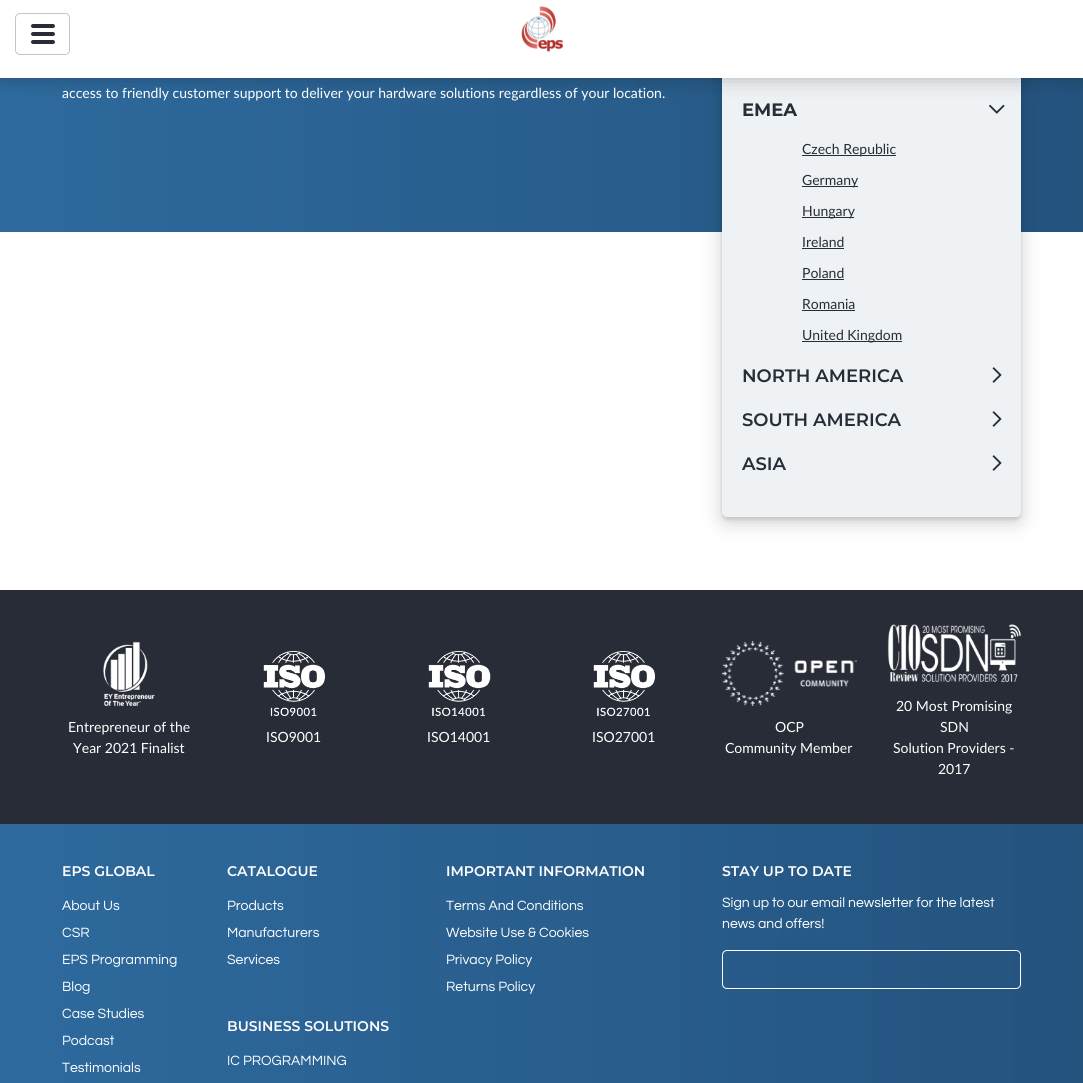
import math
import cairo



def rounded_rect(context, x, y, w, h, r):
    context.new_sub_path()
    for i, (u, v) in enumerate([(x + w - r, y + h - r), (x + r, y + h - r), (x + r, y + r), (x + w - r, y + r)]):
        context.arc(u, v, r, i * math.pi / 2, (i + 1) * math.pi / 2)
    context.close_path()


def draw_shadow(context, x, y, w, h, r, blur, alpha):
    context.push_group_with_content(cairo.Content.ALPHA)
    context.set_operator(cairo.Operator.SOURCE)
    for i in range(15, -16, -2):
        e = blur * i / 6
        if min(w, h) + 2 * e > 0:
            context.set_source_rgba(0, 0, 0, alpha * math.erfc((i - 1) / 8.5) / 2)
            rounded_rect(context, x - e, y - e, w + 2 * e, h + 2 * e, max(0, min(r + e + blur * .6, min(w, h) / 2 + e)))
            context.fill()
    context.mask(context.pop_group())


def draw_image(context, path, x, y, w, h):
    context.save()
    context.set_source_surface(cairo.ImageSurface.create_from_png(path), x, y)
    context.rectangle(x, y, w, h)
    context.fill()
    context.restore()


def draw(context):
    context.set_source_rgb(40 / 255, 44 / 255, 54 / 255)
    context.paint()
    gradient = cairo.LinearGradient(0, 98, 1083, 98)
    gradient.add_color_stop_rgba(0, 46 / 255, 106 / 255, 158 / 255, 1)
    gradient.add_color_stop_rgba(1, 36 / 255, 83 / 255, 126 / 255, 1)
    context.set_source(gradient)
    context.rectangle(0, 78, 1083, 154)
    context.fill()
    context.set_source_rgb(1, 1, 1)
    context.rectangle(0, 232, 1083, 358)
    context.fill()
    context.set_source_rgb(0, 0, 0)
    draw_shadow(context, 722, 19, 299, 501, 5, 1.5, 0.1)
    draw_shadow(context, 722, 21, 299, 501, 5, 10, 0.19)
    context.set_source_rgb(238 / 255, 242 / 255, 244 / 255)
    rounded_rect(context, 722, 16, 299, 501, 5)
    context.fill()
    draw_image(context, "images/2.png", 989, 104, 16, 10)
    context.set_source_rgb(0, 0, 0)
    draw_shadow(context, 0, 0, 1083, 78, 0, 10, 0.25)
    context.set_source_rgb(1, 1, 1)
    context.rectangle(0, 0, 1083, 78)
    context.fill()
    rounded_rect(context, 15.5, 13.5, 54, 41, 4.5)
    context.set_source_rgb(186 / 255, 201 / 255, 209 / 255)
    context.set_line_width(1)
    context.stroke()
    context.set_source_rgb(40 / 255, 44 / 255, 54 / 255)
    rounded_rect(context, 31, 24, 24, 4, 2)
    context.fill()
    rounded_rect(context, 31, 32, 24, 4, 2)
    context.fill()
    rounded_rect(context, 31, 40, 24, 4, 2)
    context.fill()
    draw_image(context, "images/1.png", 521, 6, 42, 46)
    context.rectangle(802, 155, 94, 1)
    context.fill()
    context.rectangle(802, 186, 56, 1)
    context.fill()
    context.rectangle(802, 217, 52, 1)
    context.fill()
    context.rectangle(802, 248, 42, 1)
    context.fill()
    context.rectangle(802, 279, 42, 1)
    context.fill()
    context.rectangle(802, 310, 53, 1)
    context.fill()
    context.rectangle(802, 341, 100, 1)
    context.fill()
    draw_image(context, "images/3.png", 992, 367, 10, 16)
    draw_image(context, "images/3.png", 992, 411, 10, 16)
    draw_image(context, "images/3.png", 992, 455, 10, 16)
    draw_image(context, "images/4.png", 103, 641, 52, 65)
    draw_image(context, "images/5.png", 263, 651, 62, 65)
    draw_image(context, "images/6.png", 428, 651, 63, 65)
    draw_image(context, "images/7.png", 593, 651, 62, 65)
    draw_image(context, "images/8.png", 722, 641, 135, 65)
    draw_image(context, "images/9.png", 887, 624, 135, 58)
    gradient = cairo.LinearGradient(0, 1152, 1083, 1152)
    gradient.add_color_stop_rgba(0, 46 / 255, 106 / 255, 158 / 255, 1)
    gradient.add_color_stop_rgba(1, 36 / 255, 83 / 255, 126 / 255, 1)
    context.set_source(gradient)
    context.rectangle(0, 824, 1083, 259)
    context.fill()
    rounded_rect(context, 722.5, 950.5, 298, 38, 4.5)
    context.set_source_rgb(1, 1, 1)
    context.stroke()
    context.select_font_face("Lato")
    context.set_font_size(14)
    context.move_to(62, 98)
    context.show_text("access to friendly customer support to deliver your hardware solutions regardless of your location.")
    context.select_font_face("Montserrat", cairo.FontSlant.NORMAL, cairo.FontWeight.BOLD)
    context.set_font_size(18)
    context.set_source_rgb(40 / 255, 44 / 255, 54 / 255)
    context.move_to(742, 116)
    context.show_text("EMEA")
    context.select_font_face("Lato")
    context.set_font_size(14)
    context.move_to(802, 154)
    context.show_text("Czech Republic")
    context.move_to(802, 185)
    context.show_text("Germany")
    context.move_to(802, 216)
    context.show_text("Hungary")
    context.move_to(802, 247)
    context.show_text("Ireland")
    context.move_to(802, 278)
    context.show_text("Poland")
    context.move_to(802, 309)
    context.show_text("Romania")
    context.move_to(802, 340)
    context.show_text("United Kingdom")
    context.select_font_face("Montserrat SemiBold")
    context.set_font_size(18)
    context.move_to(742, 382)
    context.show_text("NORTH AMERICA")
    context.move_to(742, 426)
    context.show_text("SOUTH AMERICA")
    context.move_to(742, 470)
    context.show_text("ASIA")
    context.select_font_face("Lato")
    context.set_font_size(14)
    context.set_source_rgb(1, 1, 1)
    context.move_to(68, 732)
    context.show_text("Entrepreneur of the")
    context.move_to(73, 753)
    context.show_text("Year 2021 Finalist")
    context.move_to(266, 742)
    context.show_text("ISO9001")
    context.move_to(427, 742)
    context.show_text("ISO14001")
    context.move_to(592, 742)
    context.show_text("ISO27001")
    context.move_to(775, 732)
    context.show_text("OCP")
    context.move_to(725, 753)
    context.show_text("Community Member")
    context.move_to(896, 711)
    context.show_text("20 Most Promising")
    context.move_to(940, 732)
    context.show_text("SDN")
    context.move_to(893, 753)
    context.show_text("Solution Providers -")
    context.move_to(938, 774)
    context.show_text("2017")
    context.select_font_face("Montserrat SemiBold")
    context.move_to(62, 876)
    context.show_text("EPS GLOBAL")
    context.select_font_face("Questrial")
    context.move_to(62, 910)
    context.show_text("About Us")
    context.move_to(62, 937)
    context.show_text("CSR")
    context.move_to(62, 964)
    context.show_text("EPS Programming")
    context.move_to(62, 991)
    context.show_text("Blog")
    context.move_to(62, 1018)
    context.show_text("Case Studies")
    context.move_to(62, 1045)
    context.show_text("Podcast")
    context.move_to(62, 1072)
    context.show_text("Testimonials")
    context.select_font_face("Montserrat SemiBold")
    context.move_to(227, 876)
    context.show_text("CATALOGUE")
    context.select_font_face("Questrial")
    context.move_to(227, 910)
    context.show_text("Products")
    context.move_to(227, 937)
    context.show_text("Manufacturers")
    context.move_to(227, 964)
    context.show_text("Services")
    context.select_font_face("Montserrat SemiBold")
    context.move_to(227, 1031)
    context.show_text("BUSINESS SOLUTIONS")
    context.select_font_face("Questrial")
    context.move_to(227, 1065)
    context.show_text("IC PROGRAMMING")
    context.select_font_face("Montserrat SemiBold")
    context.move_to(446, 876)
    context.show_text("IMPORTANT INFORMATION")
    context.select_font_face("Questrial")
    context.move_to(446, 910)
    context.show_text("Terms And Conditions")
    context.move_to(446, 937)
    context.show_text("Website Use & Cookies")
    context.move_to(446, 964)
    context.show_text("Privacy Policy")
    context.move_to(446, 991)
    context.show_text("Returns Policy")
    context.select_font_face("Montserrat SemiBold")
    context.move_to(722, 876)
    context.show_text("STAY UP TO DATE")
    context.select_font_face("Questrial")
    context.move_to(722, 907)
    context.show_text("Sign up to our email newsletter for the latest")
    context.move_to(722, 928)
    context.show_text("news and offers!")


surface = cairo.ImageSurface(cairo.Format.RGB24, 1083, 1083)
context = cairo.Context(surface)
options = cairo.FontOptions()
options.set_hint_metrics(cairo.HintMetrics.OFF)
options.set_hint_style(cairo.HintStyle.NONE)
context.set_font_options(options)
context.set_miter_limit(4)
draw(context)
surface.write_to_png("out.png")
